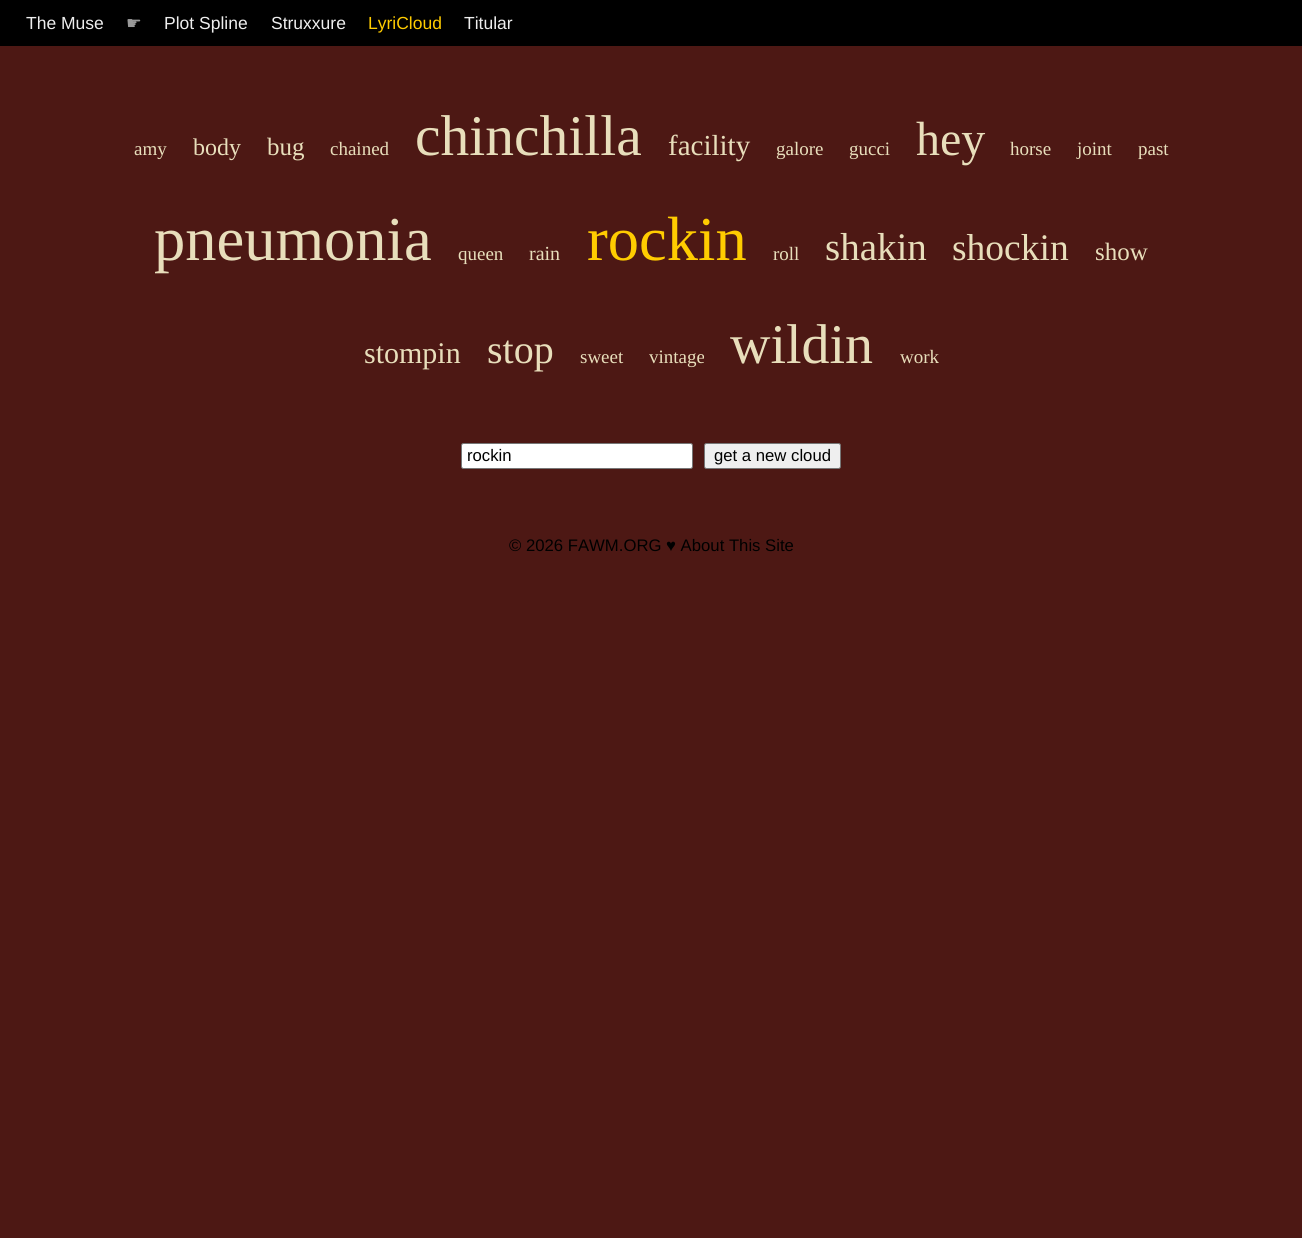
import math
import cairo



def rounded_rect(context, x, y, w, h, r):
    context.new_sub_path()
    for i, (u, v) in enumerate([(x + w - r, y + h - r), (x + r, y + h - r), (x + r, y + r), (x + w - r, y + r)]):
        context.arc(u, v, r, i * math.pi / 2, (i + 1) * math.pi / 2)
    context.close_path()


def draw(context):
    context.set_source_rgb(77 / 255, 24 / 255, 20 / 255)
    context.paint()
    context.set_source_rgb(0, 0, 0)
    context.rectangle(0, 0, 1302, 46)
    context.fill()
    context.set_source_rgb(1, 1, 1)
    rounded_rect(context, 461.5, 443.5, 231, 25, 2)
    context.fill_preserve()
    context.set_source_rgb(118 / 255, 118 / 255, 118 / 255)
    context.set_line_width(1)
    context.stroke()
    context.set_source_rgb(239 / 255, 239 / 255, 239 / 255)
    rounded_rect(context, 704.5, 443.5, 136, 25, 2)
    context.fill_preserve()
    context.set_source_rgb(118 / 255, 118 / 255, 118 / 255)
    context.stroke()
    context.select_font_face("Liberation Sans")
    context.set_font_size(17.5)
    context.set_source_rgb(238 / 255, 238 / 255, 238 / 255)
    context.move_to(26, 29)
    context.show_text("The Muse")
    context.select_font_face("DejaVu Sans")
    context.set_source_rgb(153 / 255, 153 / 255, 153 / 255)
    context.move_to(126, 29)
    context.show_text("☛")
    context.select_font_face("Liberation Sans")
    context.set_source_rgb(238 / 255, 238 / 255, 238 / 255)
    context.move_to(164, 29)
    context.show_text("Plot Spline")
    context.move_to(271, 29)
    context.show_text("Struxxure")
    context.set_source_rgb(1, 204 / 255, 0)
    context.move_to(368, 29)
    context.show_text("LyriCloud")
    context.set_source_rgb(238 / 255, 238 / 255, 238 / 255)
    context.move_to(464, 29)
    context.show_text("Titular")
    context.select_font_face("Liberation Serif")
    context.set_font_size(19)
    context.set_source_rgb(232 / 255, 222 / 255, 187 / 255)
    context.move_to(134, 155)
    context.show_text("amy")
    context.set_font_size(24)
    context.move_to(193, 155)
    context.show_text("body")
    context.set_font_size(25)
    context.move_to(267, 155)
    context.show_text("bug")
    context.set_font_size(19)
    context.move_to(330, 155)
    context.show_text("chained")
    context.set_font_size(57.5)
    context.move_to(415, 155)
    context.show_text("chinchilla")
    context.set_font_size(29)
    context.move_to(668, 155)
    context.show_text("facility")
    context.set_font_size(19)
    context.move_to(776, 155)
    context.show_text("galore")
    context.move_to(849, 155)
    context.show_text("gucci")
    context.set_font_size(48)
    context.move_to(916, 155)
    context.show_text("hey")
    context.set_font_size(19)
    context.move_to(1010, 155)
    context.show_text("horse")
    context.move_to(1077, 155)
    context.show_text("joint")
    context.move_to(1138, 155)
    context.show_text("past")
    context.set_font_size(62.5)
    context.move_to(154, 260)
    context.show_text("pneumonia")
    context.set_font_size(19)
    context.move_to(458, 260)
    context.show_text("queen")
    context.set_font_size(20)
    context.move_to(529, 260)
    context.show_text("rain")
    context.set_font_size(62.5)
    context.set_source_rgb(1, 204 / 255, 0)
    context.move_to(587, 260)
    context.show_text("rockin")
    context.set_font_size(19)
    context.set_source_rgb(232 / 255, 222 / 255, 187 / 255)
    context.move_to(773, 260)
    context.show_text("roll")
    context.set_font_size(39)
    context.move_to(825, 260)
    context.show_text("shakin")
    context.set_font_size(37.5)
    context.move_to(952, 260)
    context.show_text("shockin")
    context.set_font_size(25)
    context.move_to(1095, 260)
    context.show_text("show")
    context.set_font_size(30)
    context.move_to(364, 363)
    context.show_text("stompin")
    context.set_font_size(40)
    context.move_to(487, 363)
    context.show_text("stop")
    context.set_font_size(19)
    context.move_to(580, 363)
    context.show_text("sweet")
    context.move_to(649, 363)
    context.show_text("vintage")
    context.set_font_size(56)
    context.move_to(730, 363)
    context.show_text("wildin")
    context.set_font_size(19)
    context.move_to(900, 363)
    context.show_text("work")
    context.select_font_face("Liberation Sans")
    context.set_font_size(16.7)
    context.set_source_rgb(0, 0, 0)
    context.move_to(467, 461)
    context.show_text("rockin")
    context.move_to(714, 461)
    context.show_text("get a new cloud")
    context.move_to(509, 551)
    context.show_text("© 2026 FAWM.ORG ♥ About This Site")


surface = cairo.ImageSurface(cairo.Format.RGB24, 1302, 1238)
context = cairo.Context(surface)
options = cairo.FontOptions()
options.set_hint_metrics(cairo.HintMetrics.OFF)
options.set_hint_style(cairo.HintStyle.NONE)
context.set_font_options(options)
context.set_miter_limit(4)
draw(context)
surface.write_to_png("out.png")
